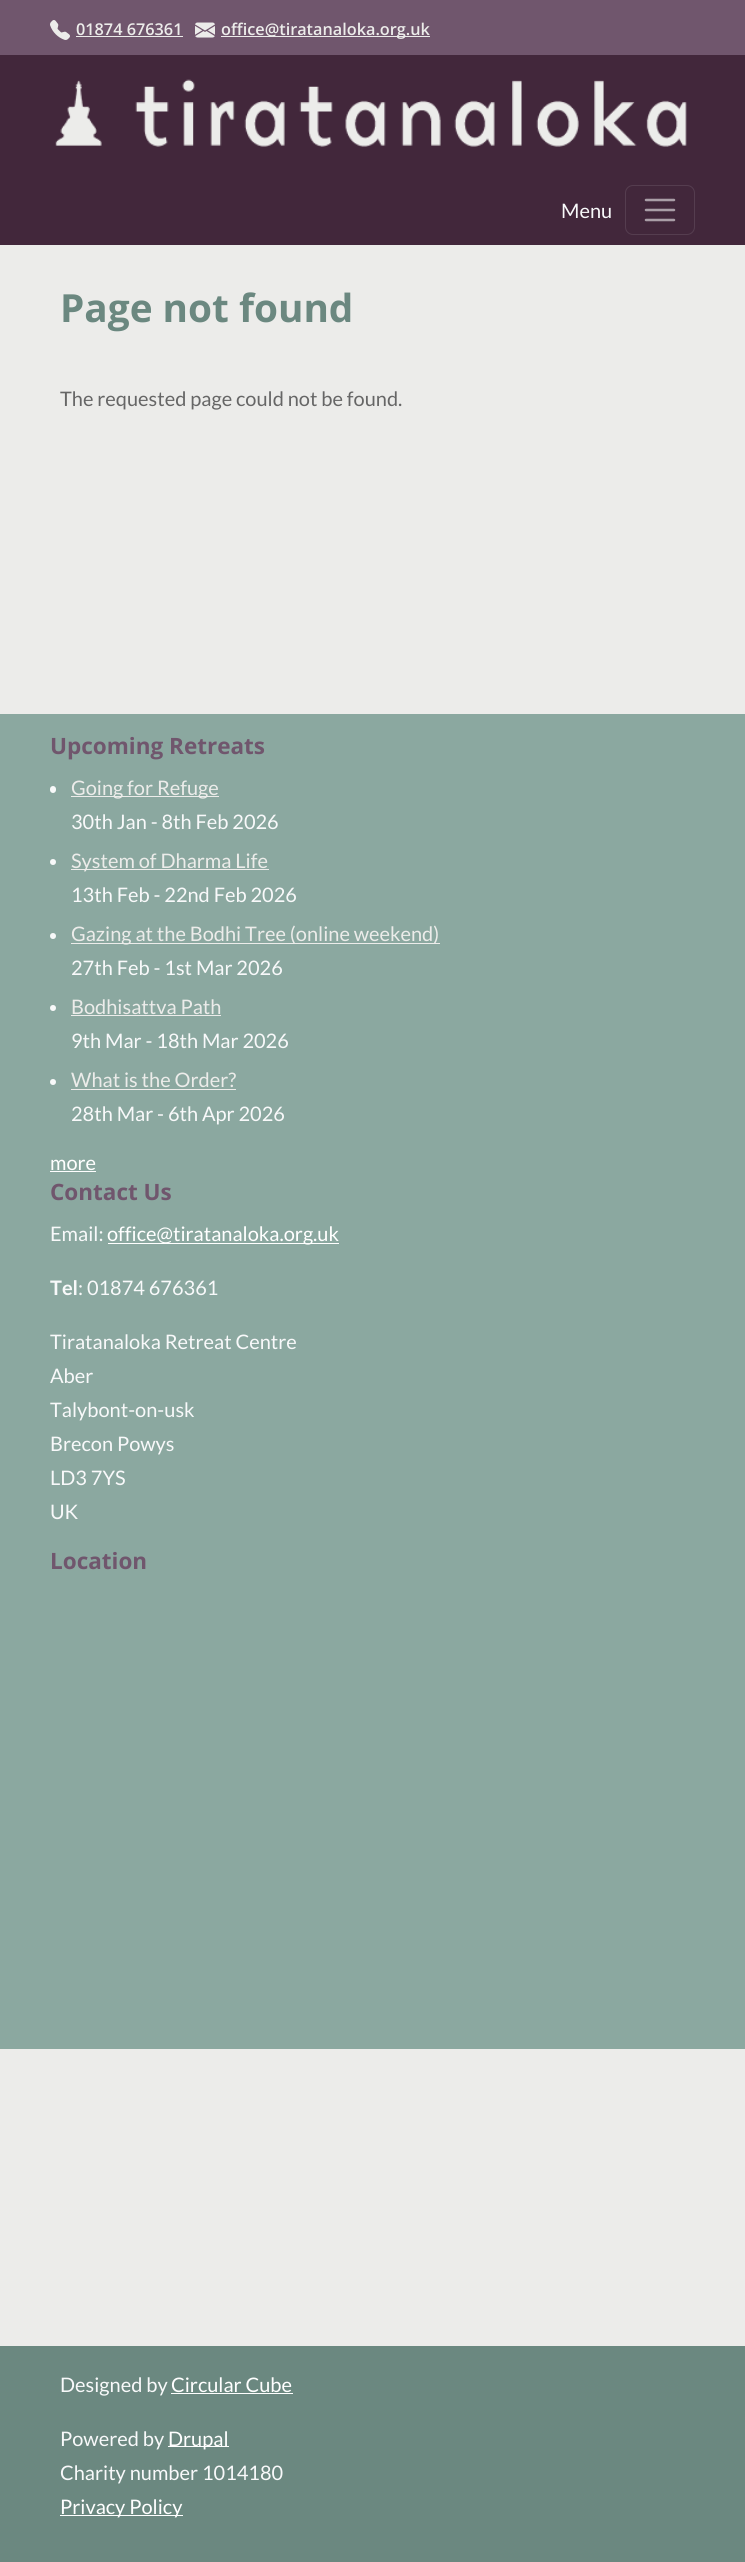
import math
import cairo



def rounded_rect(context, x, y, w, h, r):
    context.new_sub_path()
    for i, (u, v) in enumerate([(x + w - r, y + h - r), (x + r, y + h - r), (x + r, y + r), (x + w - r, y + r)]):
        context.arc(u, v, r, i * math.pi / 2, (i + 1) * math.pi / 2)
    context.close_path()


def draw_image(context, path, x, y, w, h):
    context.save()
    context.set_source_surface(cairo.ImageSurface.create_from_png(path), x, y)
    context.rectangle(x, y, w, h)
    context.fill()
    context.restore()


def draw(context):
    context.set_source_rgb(236 / 255, 236 / 255, 234 / 255)
    context.paint()
    context.set_source_rgb(112 / 255, 86 / 255, 109 / 255)
    context.rectangle(0, 0, 745, 55)
    context.fill()
    draw_image(context, "images/1.png", 50, 20, 20, 20)
    context.set_source_rgb(236 / 255, 236 / 255, 234 / 255)
    context.rectangle(76, 36, 107, 1)
    context.fill()
    draw_image(context, "images/2.png", 195, 22, 20, 16)
    context.rectangle(221, 36, 209, 1)
    context.fill()
    context.set_source_rgb(66 / 255, 39 / 255, 59 / 255)
    context.rectangle(0, 55, 745, 190)
    context.fill()
    draw_image(context, "images/3.png", 55, 79, 632, 68)
    rounded_rect(context, 625.5, 185.5, 69, 49, 7.5)
    context.set_source_rgb(85 / 255, 61 / 255, 79 / 255)
    context.set_line_width(1)
    context.stroke()
    context.new_path()
    context.move_to(646, 200)
    context.line_to(674, 200)
    context.move_to(646, 210)
    context.line_to(674, 210)
    context.move_to(646, 220)
    context.line_to(674, 220)
    context.set_source_rgb(170 / 255, 158 / 255, 167 / 255)
    context.set_line_width(2.5)
    context.set_line_cap(cairo.LineCap.ROUND)
    context.stroke()
    context.set_source_rgb(139 / 255, 168 / 255, 160 / 255)
    context.rectangle(0, 714, 745, 1335)
    context.fill()
    context.set_source_rgb(248 / 255, 249 / 255, 250 / 255)
    rounded_rect(context, 50, 786, 6, 7, 3)
    context.fill()
    context.set_source_rgb(236 / 255, 236 / 255, 234 / 255)
    context.rectangle(71, 796, 148, 1)
    context.fill()
    context.set_source_rgb(248 / 255, 249 / 255, 250 / 255)
    context.arc(53, 862, 3, 0, 2 * math.pi)
    context.fill()
    context.set_source_rgb(236 / 255, 236 / 255, 234 / 255)
    context.rectangle(71, 869, 198, 1)
    context.fill()
    context.set_source_rgb(248 / 255, 249 / 255, 250 / 255)
    context.arc(53, 936, 3, 0, 2 * math.pi)
    context.fill()
    context.set_source_rgb(236 / 255, 236 / 255, 234 / 255)
    context.rectangle(71, 943, 369, 1)
    context.fill()
    context.set_source_rgb(248 / 255, 249 / 255, 250 / 255)
    context.arc(53, 1008, 3, 0, 2 * math.pi)
    context.fill()
    context.set_source_rgb(236 / 255, 236 / 255, 234 / 255)
    context.rectangle(71, 1015, 150, 1)
    context.fill()
    context.set_source_rgb(248 / 255, 249 / 255, 250 / 255)
    context.arc(53, 1082, 3, 0, 2 * math.pi)
    context.fill()
    context.set_source_rgb(236 / 255, 236 / 255, 234 / 255)
    context.rectangle(71, 1089, 165, 1)
    context.fill()
    context.set_source_rgb(1, 1, 1)
    context.rectangle(50, 1171, 46, 1)
    context.fill()
    context.rectangle(108, 1243, 231, 1)
    context.fill()
    context.set_source_rgb(107 / 255, 136 / 255, 128 / 255)
    context.rectangle(0, 2346, 745, 216)
    context.fill()
    context.set_source_rgb(1, 1, 1)
    context.rectangle(171, 2393, 122, 1)
    context.fill()
    context.rectangle(168, 2446, 61, 1)
    context.fill()
    context.rectangle(60, 2515, 123, 1)
    context.fill()
    context.select_font_face("Open Sans SemiBold")
    context.set_font_size(16.25)
    context.set_source_rgb(236 / 255, 236 / 255, 234 / 255)
    context.move_to(76, 35)
    context.show_text("01874 676361")
    context.move_to(221, 35)
    context.show_text("office@tiratanaloka.org.uk")
    context.select_font_face("Lato")
    context.set_font_size(20)
    context.set_source_rgb(248 / 255, 249 / 255, 250 / 255)
    context.move_to(561, 218)
    context.show_text("Menu")
    context.select_font_face("Open Sans", cairo.FontSlant.NORMAL, cairo.FontWeight.BOLD)
    context.set_font_size(38.75)
    context.set_source_rgb(107 / 255, 136 / 255, 128 / 255)
    context.move_to(60, 322)
    context.show_text("Page not found")
    context.select_font_face("Lato")
    context.set_font_size(20)
    context.set_source_rgb(102 / 255, 102 / 255, 102 / 255)
    context.move_to(60, 406)
    context.show_text("The requested page could not be found.")
    context.select_font_face("Open Sans", cairo.FontSlant.NORMAL, cairo.FontWeight.BOLD)
    context.set_font_size(22.5)
    context.set_source_rgb(112 / 255, 86 / 255, 109 / 255)
    context.move_to(50, 754)
    context.show_text("Upcoming Retreats")
    context.select_font_face("Lato")
    context.set_font_size(20)
    context.set_source_rgb(236 / 255, 236 / 255, 234 / 255)
    context.move_to(71, 795)
    context.show_text("Going for Refuge")
    context.set_source_rgb(248 / 255, 249 / 255, 250 / 255)
    context.move_to(71, 829)
    context.show_text("30th Jan - 8th Feb 2026")
    context.set_source_rgb(236 / 255, 236 / 255, 234 / 255)
    context.move_to(71, 868)
    context.show_text("System of Dharma Life")
    context.set_source_rgb(248 / 255, 249 / 255, 250 / 255)
    context.move_to(71, 902)
    context.show_text("13th Feb - 22nd Feb 2026")
    context.set_source_rgb(236 / 255, 236 / 255, 234 / 255)
    context.move_to(71, 941)
    context.show_text("Gazing at the Bodhi Tree (online weekend)")
    context.set_source_rgb(248 / 255, 249 / 255, 250 / 255)
    context.move_to(71, 975)
    context.show_text("27th Feb - 1st Mar 2026")
    context.set_source_rgb(236 / 255, 236 / 255, 234 / 255)
    context.move_to(71, 1014)
    context.show_text("Bodhisattva Path")
    context.set_source_rgb(248 / 255, 249 / 255, 250 / 255)
    context.move_to(71, 1048)
    context.show_text("9th Mar - 18th Mar 2026")
    context.set_source_rgb(236 / 255, 236 / 255, 234 / 255)
    context.move_to(71, 1087)
    context.show_text("What is the Order?")
    context.set_source_rgb(248 / 255, 249 / 255, 250 / 255)
    context.move_to(71, 1121)
    context.show_text("28th Mar - 6th Apr 2026")
    context.set_source_rgb(1, 1, 1)
    context.move_to(50, 1170)
    context.show_text("more")
    context.select_font_face("Open Sans", cairo.FontSlant.NORMAL, cairo.FontWeight.BOLD)
    context.set_font_size(22.5)
    context.set_source_rgb(112 / 255, 86 / 255, 109 / 255)
    context.move_to(50, 1200)
    context.show_text("Contact Us")
    context.select_font_face("Lato")
    context.set_font_size(20)
    context.set_source_rgb(248 / 255, 249 / 255, 250 / 255)
    context.move_to(50, 1241)
    context.show_text("Email:")
    context.set_source_rgb(1, 1, 1)
    context.move_to(107, 1241)
    context.show_text("office@tiratanaloka.org.uk")
    context.select_font_face("Lato", cairo.FontSlant.NORMAL, cairo.FontWeight.BOLD)
    context.set_source_rgb(248 / 255, 249 / 255, 250 / 255)
    context.move_to(50, 1295)
    context.show_text("Tel")
    context.select_font_face("Lato")
    context.move_to(78, 1295)
    context.show_text(": 01874 676361")
    context.move_to(50, 1349)
    context.show_text("Tiratanaloka Retreat Centre")
    context.move_to(50, 1383)
    context.show_text("Aber")
    context.move_to(50, 1417)
    context.show_text("Talybont-on-usk")
    context.move_to(50, 1451)
    context.show_text("Brecon Powys")
    context.move_to(50, 1485)
    context.show_text("LD3 7YS")
    context.move_to(50, 1519)
    context.show_text("UK")
    context.select_font_face("Open Sans", cairo.FontSlant.NORMAL, cairo.FontWeight.BOLD)
    context.set_font_size(22.5)
    context.set_source_rgb(112 / 255, 86 / 255, 109 / 255)
    context.move_to(50, 1569)
    context.show_text("Location")
    context.select_font_face("Lato")
    context.set_font_size(20)
    context.set_source_rgb(248 / 255, 249 / 255, 250 / 255)
    context.move_to(60, 2392)
    context.show_text("Designed by")
    context.set_source_rgb(1, 1, 1)
    context.move_to(171, 2392)
    context.show_text("Circular Cube")
    context.set_source_rgb(248 / 255, 249 / 255, 250 / 255)
    context.move_to(60, 2446)
    context.show_text("Powered by")
    context.set_source_rgb(1, 1, 1)
    context.move_to(168, 2446)
    context.show_text("Drupal")
    context.set_source_rgb(248 / 255, 249 / 255, 250 / 255)
    context.move_to(60, 2480)
    context.show_text("Charity number 1014180")
    context.set_source_rgb(1, 1, 1)
    context.move_to(60, 2514)
    context.show_text("Privacy Policy")


surface = cairo.ImageSurface(cairo.Format.RGB24, 745, 2562)
context = cairo.Context(surface)
options = cairo.FontOptions()
options.set_hint_metrics(cairo.HintMetrics.OFF)
options.set_hint_style(cairo.HintStyle.NONE)
context.set_font_options(options)
context.set_miter_limit(4)
draw(context)
surface.write_to_png("out.png")
